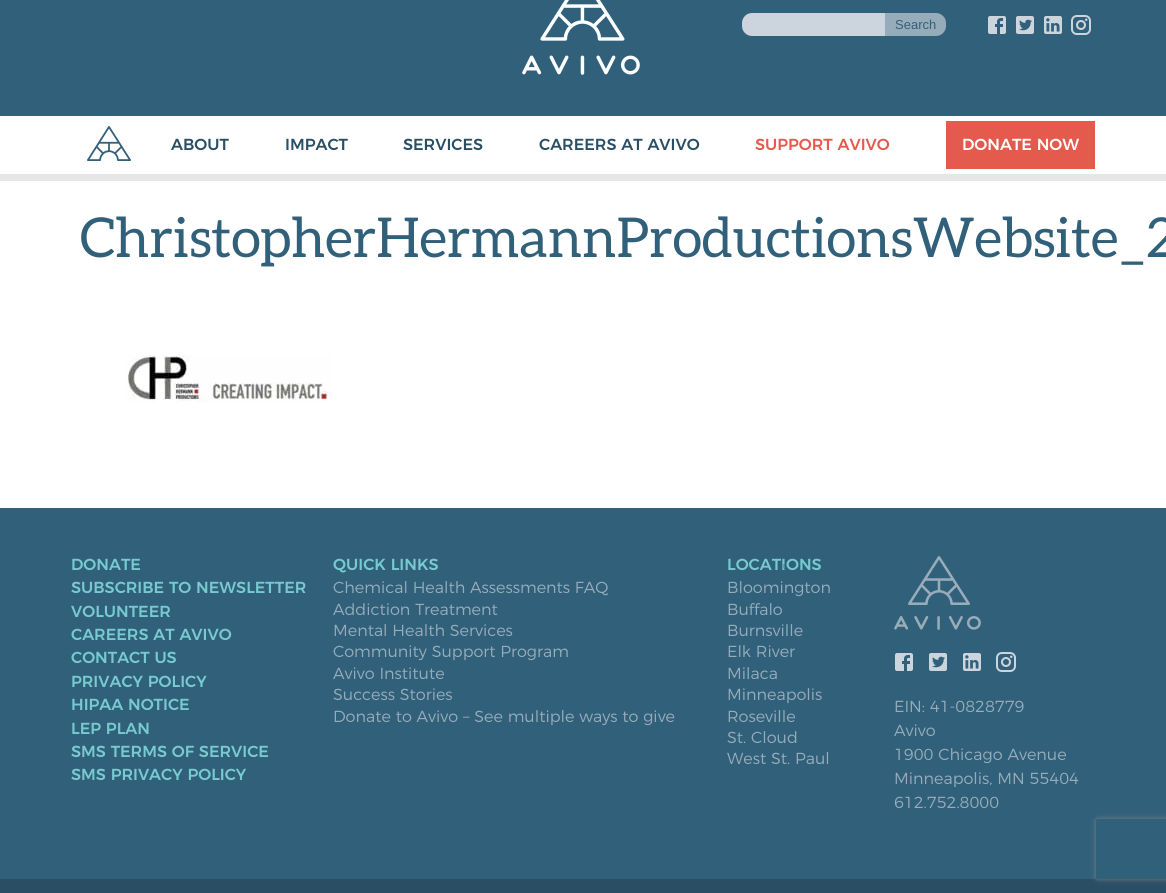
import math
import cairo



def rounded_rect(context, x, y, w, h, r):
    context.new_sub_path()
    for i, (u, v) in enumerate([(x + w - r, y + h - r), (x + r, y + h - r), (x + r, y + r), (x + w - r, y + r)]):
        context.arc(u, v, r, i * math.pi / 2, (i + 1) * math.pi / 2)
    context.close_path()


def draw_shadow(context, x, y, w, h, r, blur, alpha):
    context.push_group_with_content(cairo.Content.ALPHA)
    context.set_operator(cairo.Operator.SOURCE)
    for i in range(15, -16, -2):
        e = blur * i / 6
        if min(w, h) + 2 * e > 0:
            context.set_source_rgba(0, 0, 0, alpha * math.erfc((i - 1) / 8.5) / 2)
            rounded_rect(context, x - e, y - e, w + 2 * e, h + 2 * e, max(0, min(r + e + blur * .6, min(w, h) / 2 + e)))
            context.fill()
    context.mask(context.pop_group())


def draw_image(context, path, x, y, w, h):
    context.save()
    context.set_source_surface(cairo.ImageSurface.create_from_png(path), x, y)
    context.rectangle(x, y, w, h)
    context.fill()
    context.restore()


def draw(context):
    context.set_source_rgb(1, 1, 1)
    context.paint()
    context.set_source_rgb(49 / 255, 96 / 255, 122 / 255)
    context.rectangle(0, 0, 1166, 116)
    context.fill()
    draw_image(context, "images/1.png", 522, 0, 118, 75)
    context.set_source_rgb(204 / 255, 213 / 255, 221 / 255)
    context.new_path()
    context.move_to(752, 13)
    context.line_to(886, 13)
    context.line_to(886, 36)
    context.line_to(752, 36)
    context.curve_to(746.5, 36, 742, 31.5, 742, 26)
    context.line_to(742, 23)
    context.curve_to(742, 17.5, 746.5, 13, 752, 13)
    context.close_path()
    context.fill()
    context.set_source_rgb(151 / 255, 172 / 255, 186 / 255)
    context.new_path()
    context.move_to(885, 13)
    context.line_to(936, 13)
    context.curve_to(941.5, 13, 946, 17.5, 946, 23)
    context.line_to(946, 26)
    context.curve_to(946, 31.5, 941.5, 36, 936, 36)
    context.line_to(885, 36)
    context.close_path()
    context.fill()
    draw_image(context, "images/2.png", 988, 16, 18, 18)
    draw_image(context, "images/3.png", 1016, 16, 18, 18)
    draw_image(context, "images/4.png", 1044, 16, 18, 18)
    draw_image(context, "images/5.png", 1071, 15, 20, 20)
    draw_image(context, "images/6.png", 87, 126, 44, 35)
    context.set_source_rgb(228 / 255, 90 / 255, 76 / 255)
    context.rectangle(946, 121, 149, 48)
    context.fill()
    context.set_source_rgb(230 / 255, 230 / 255, 230 / 255)
    context.rectangle(0, 174, 1166, 7)
    context.fill()
    draw_image(context, "images/7.png", 126, 355, 206, 48)
    context.set_source_rgb(49 / 255, 96 / 255, 122 / 255)
    context.rectangle(0, 508, 1166, 371)
    context.fill()
    draw_image(context, "images/8.png", 894, 556, 87, 74)
    draw_image(context, "images/2.png", 895, 653, 18, 18)
    draw_image(context, "images/3.png", 929, 653, 18, 18)
    draw_image(context, "images/4.png", 963, 653, 18, 18)
    draw_image(context, "images/5.png", 996, 652, 20, 20)
    context.set_source_rgb(42 / 255, 79 / 255, 101 / 255)
    context.rectangle(0, 879, 1166, 14)
    context.fill()
    context.save()
    context.set_fill_rule(cairo.FillRule.EVEN_ODD)
    context.new_path()
    context.move_to(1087, 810)
    context.line_to(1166, 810)
    context.line_to(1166, 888)
    context.line_to(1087, 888)
    context.close_path()
    context.move_to(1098, 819)
    context.line_to(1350, 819)
    context.curve_to(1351, 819, 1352, 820, 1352, 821)
    context.line_to(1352, 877)
    context.curve_to(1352, 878, 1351, 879, 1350, 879)
    context.line_to(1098, 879)
    context.curve_to(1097, 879, 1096, 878, 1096, 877)
    context.line_to(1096, 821)
    context.curve_to(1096, 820, 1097, 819, 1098, 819)
    context.close_path()
    context.clip()
    context.set_source_rgb(128 / 255, 128 / 255, 128 / 255)
    draw_shadow(context, 1096, 819, 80, 60, 2, 2.5, 1)
    context.restore()
    context.select_font_face("Liberation Sans")
    context.set_font_size(13)
    context.set_source_rgb(49 / 255, 96 / 255, 122 / 255)
    context.move_to(895, 29)
    context.show_text("Search")
    context.select_font_face("Montserrat Medium")
    context.set_font_size(16)
    context.set_source_rgb(42 / 255, 79 / 255, 101 / 255)
    context.move_to(171, 150)
    context.show_text("ABOUT")
    context.move_to(285, 150)
    context.show_text("IMPACT")
    context.move_to(403, 150)
    context.show_text("SERVICES")
    context.move_to(539, 150)
    context.show_text("CAREERS AT AVIVO")
    context.set_source_rgb(228 / 255, 90 / 255, 76 / 255)
    context.move_to(755, 150)
    context.show_text("SUPPORT AVIVO")
    context.set_source_rgb(1, 1, 1)
    context.move_to(962, 150)
    context.show_text("DONATE NOW")
    context.select_font_face("Aleo")
    context.set_font_size(55)
    context.set_source_rgb(49 / 255, 96 / 255, 122 / 255)
    context.move_to(80, 257)
    context.show_text("ChristopherHermannProductionsWebsite_2")
    context.select_font_face("Montserrat Medium")
    context.set_font_size(16)
    context.set_source_rgb(119 / 255, 203 / 255, 208 / 255)
    context.move_to(71, 570)
    context.show_text("DONATE")
    context.move_to(71, 593)
    context.show_text("SUBSCRIBE TO NEWSLETTER")
    context.move_to(71, 617)
    context.show_text("VOLUNTEER")
    context.move_to(71, 640)
    context.show_text("CAREERS AT AVIVO")
    context.move_to(71, 663)
    context.show_text("CONTACT US")
    context.move_to(71, 687)
    context.show_text("PRIVACY POLICY")
    context.move_to(71, 710)
    context.show_text("HIPAA NOTICE")
    context.move_to(71, 734)
    context.show_text("LEP PLAN")
    context.move_to(71, 757)
    context.show_text("SMS TERMS OF SERVICE")
    context.move_to(71, 780)
    context.show_text("SMS PRIVACY POLICY")
    context.move_to(333, 570)
    context.show_text("QUICK LINKS")
    context.select_font_face("Montserrat Light")
    context.set_source_rgb(151 / 255, 172 / 255, 186 / 255)
    context.move_to(333, 593)
    context.show_text("Chemical Health Assessments FAQ")
    context.move_to(333, 615)
    context.show_text("Addiction Treatment")
    context.move_to(333, 636)
    context.show_text("Mental Health Services")
    context.move_to(333, 657)
    context.show_text("Community Support Program")
    context.move_to(333, 679)
    context.show_text("Avivo Institute")
    context.move_to(333, 700)
    context.show_text("Success Stories")
    context.move_to(333, 722)
    context.show_text("Donate to Avivo – See multiple ways to give")
    context.select_font_face("Montserrat Medium")
    context.set_source_rgb(119 / 255, 203 / 255, 208 / 255)
    context.move_to(727, 570)
    context.show_text("LOCATIONS")
    context.select_font_face("Montserrat Light")
    context.set_source_rgb(151 / 255, 172 / 255, 186 / 255)
    context.move_to(727, 593)
    context.show_text("Bloomington")
    context.move_to(727, 615)
    context.show_text("Buffalo")
    context.move_to(727, 636)
    context.show_text("Burnsville")
    context.move_to(727, 657)
    context.show_text("Elk River")
    context.move_to(727, 679)
    context.show_text("Milaca")
    context.move_to(727, 700)
    context.show_text("Minneapolis")
    context.move_to(727, 722)
    context.show_text("Roseville")
    context.move_to(727, 743)
    context.show_text("St. Cloud")
    context.move_to(727, 764)
    context.show_text("West St. Paul")
    context.move_to(894, 712)
    context.show_text("EIN: 41-0828779")
    context.move_to(894, 736)
    context.show_text("Avivo")
    context.move_to(894, 760)
    context.show_text("1900 Chicago Avenue")
    context.move_to(894, 784)
    context.show_text("Minneapolis, MN 55404")
    context.move_to(894, 808)
    context.show_text("612.752.8000")
    context.select_font_face("Liberation Sans")
    context.set_font_size(8)
    context.set_source_rgb(58 / 255, 108 / 255, 132 / 255)
    context.move_to(783, 569)
    context.show_text("t")
    context.move_to(932, 569)
    context.show_text(",")
    context.set_source_rgb(57 / 255, 102 / 255, 127 / 255)
    context.move_to(764, 586)
    context.show_text(".")


surface = cairo.ImageSurface(cairo.Format.RGB24, 1166, 893)
context = cairo.Context(surface)
options = cairo.FontOptions()
options.set_hint_metrics(cairo.HintMetrics.OFF)
options.set_hint_style(cairo.HintStyle.NONE)
context.set_font_options(options)
context.set_miter_limit(4)
draw(context)
surface.write_to_png("out.png")
